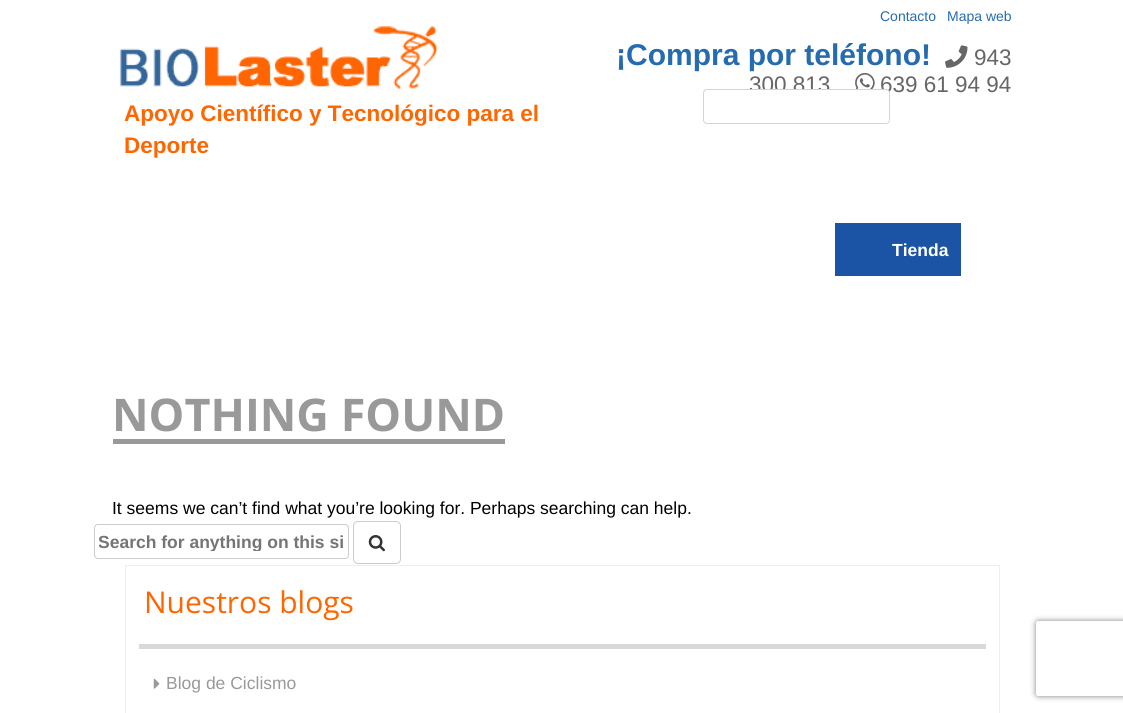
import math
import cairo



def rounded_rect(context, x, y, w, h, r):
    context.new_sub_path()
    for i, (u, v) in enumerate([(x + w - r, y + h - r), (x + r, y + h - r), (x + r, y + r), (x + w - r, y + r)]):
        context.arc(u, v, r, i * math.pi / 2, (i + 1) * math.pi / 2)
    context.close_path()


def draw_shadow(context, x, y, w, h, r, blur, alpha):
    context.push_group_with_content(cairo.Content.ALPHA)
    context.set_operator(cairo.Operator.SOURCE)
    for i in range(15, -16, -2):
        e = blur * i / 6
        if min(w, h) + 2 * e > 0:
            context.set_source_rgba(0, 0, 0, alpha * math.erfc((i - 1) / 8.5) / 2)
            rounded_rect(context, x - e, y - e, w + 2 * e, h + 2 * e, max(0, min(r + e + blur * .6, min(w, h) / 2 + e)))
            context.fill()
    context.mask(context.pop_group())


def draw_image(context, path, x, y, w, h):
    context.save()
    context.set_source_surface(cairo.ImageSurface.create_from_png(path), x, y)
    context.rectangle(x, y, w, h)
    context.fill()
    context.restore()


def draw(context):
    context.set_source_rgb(1, 1, 1)
    context.paint()
    draw_image(context, "images/1.png", 945, 45, 23, 23)
    draw_image(context, "images/2.png", 855, 73, 20, 16)
    draw_image(context, "images/3.png", 119, 26, 318, 63)
    context.set_source_rgb(27 / 255, 84 / 255, 165 / 255)
    context.rectangle(835, 223, 126, 53)
    context.fill()
    context.set_source_rgb(153 / 255, 153 / 255, 153 / 255)
    context.rectangle(113, 439, 392, 5)
    context.fill()
    rounded_rect(context, 94.5, 524.5, 254, 34, 3.5)
    context.set_source_rgb(204 / 255, 204 / 255, 204 / 255)
    context.set_line_width(1)
    context.stroke()
    rounded_rect(context, 353.5, 521.5, 47, 42, 4.5)
    context.stroke()
    draw_image(context, "images/4.png", 368, 535, 17, 17)
    context.rectangle(125.5, 565.5, 874, 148)
    context.set_source_rgb(238 / 255, 238 / 255, 238 / 255)
    context.stroke()
    context.set_source_rgb(217 / 255, 217 / 255, 217 / 255)
    context.rectangle(139, 644, 847, 5)
    context.fill()
    draw_image(context, "images/5.png", 153, 678, 7, 11)
    context.save()
    context.set_fill_rule(cairo.FillRule.EVEN_ODD)
    context.new_path()
    context.move_to(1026, 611)
    context.line_to(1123, 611)
    context.line_to(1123, 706)
    context.line_to(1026, 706)
    context.close_path()
    context.move_to(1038.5, 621)
    context.line_to(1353.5, 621)
    context.curve_to(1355, 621, 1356, 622, 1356, 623.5)
    context.line_to(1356, 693.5)
    context.curve_to(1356, 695, 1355, 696, 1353.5, 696)
    context.line_to(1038.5, 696)
    context.curve_to(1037, 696, 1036, 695, 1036, 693.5)
    context.line_to(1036, 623.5)
    context.curve_to(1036, 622, 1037, 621, 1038.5, 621)
    context.close_path()
    context.clip()
    context.set_source_rgb(128 / 255, 128 / 255, 128 / 255)
    draw_shadow(context, 1036, 621, 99, 75, 2.5, 3, 1)
    context.restore()
    context.select_font_face("Liberation Sans")
    context.set_font_size(14)
    context.set_source_rgb(36 / 255, 108 / 255, 175 / 255)
    context.move_to(880, 21)
    context.show_text("Contacto")
    context.move_to(947, 21)
    context.show_text("Mapa web")
    context.select_font_face("Liberation Sans", cairo.FontSlant.NORMAL, cairo.FontWeight.BOLD)
    context.set_font_size(30)
    context.move_to(616, 65)
    context.show_text("¡Compra por teléfono!")
    context.select_font_face("Liberation Sans")
    context.set_font_size(22.5)
    context.set_source_rgb(102 / 255, 102 / 255, 102 / 255)
    context.move_to(974, 65)
    context.show_text("943")
    context.move_to(749, 92)
    context.show_text("300 813")
    context.move_to(880, 92)
    context.show_text("639 61 94 94")
    context.set_source_rgb(1, 1, 1)
    rounded_rect(context, 703.5, 89.5, 186, 34, 3.5)
    context.fill_preserve()
    context.set_source_rgb(212 / 255, 212 / 255, 212 / 255)
    context.stroke()
    context.select_font_face("Liberation Sans", cairo.FontSlant.NORMAL, cairo.FontWeight.BOLD)
    context.set_source_rgb(1, 102 / 255, 0)
    context.move_to(124, 121)
    context.show_text("Apoyo Científico y Tecnológico para el")
    context.move_to(124, 153)
    context.show_text("Deporte")
    context.set_font_size(17.5)
    context.set_source_rgb(1, 1, 1)
    context.move_to(892, 256)
    context.show_text("Tienda")
    context.select_font_face("Open Sans", cairo.FontSlant.NORMAL, cairo.FontWeight.BOLD)
    context.set_font_size(45)
    context.set_source_rgb(153 / 255, 153 / 255, 153 / 255)
    context.move_to(112, 431)
    context.show_text("NOTHING FOUND")
    context.select_font_face("Liberation Sans")
    context.set_font_size(17.5)
    context.set_source_rgb(0, 0, 0)
    context.move_to(112, 514)
    context.show_text("It seems we can’t find what you’re looking for. Perhaps searching can help.")
    context.save()
    context.rectangle(99, 531, 245, 20)
    context.clip()
    context.select_font_face("Liberation Sans", cairo.FontSlant.NORMAL, cairo.FontWeight.BOLD)
    context.set_source_rgb(117 / 255, 117 / 255, 117 / 255)
    context.move_to(98, 548)
    context.show_text("Search for anything on this si")
    context.restore()
    context.select_font_face("Open Sans")
    context.set_font_size(30)
    context.set_source_rgb(1, 102 / 255, 0)
    context.move_to(144, 613)
    context.show_text("Nuestros blogs")
    context.select_font_face("Liberation Sans")
    context.set_font_size(17.5)
    context.set_source_rgb(153 / 255, 153 / 255, 153 / 255)
    context.move_to(166, 689)
    context.show_text("Blog de Ciclismo")


surface = cairo.ImageSurface(cairo.Format.RGB24, 1123, 713)
context = cairo.Context(surface)
options = cairo.FontOptions()
options.set_hint_metrics(cairo.HintMetrics.OFF)
options.set_hint_style(cairo.HintStyle.NONE)
context.set_font_options(options)
context.set_miter_limit(4)
draw(context)
surface.write_to_png("out.png")
